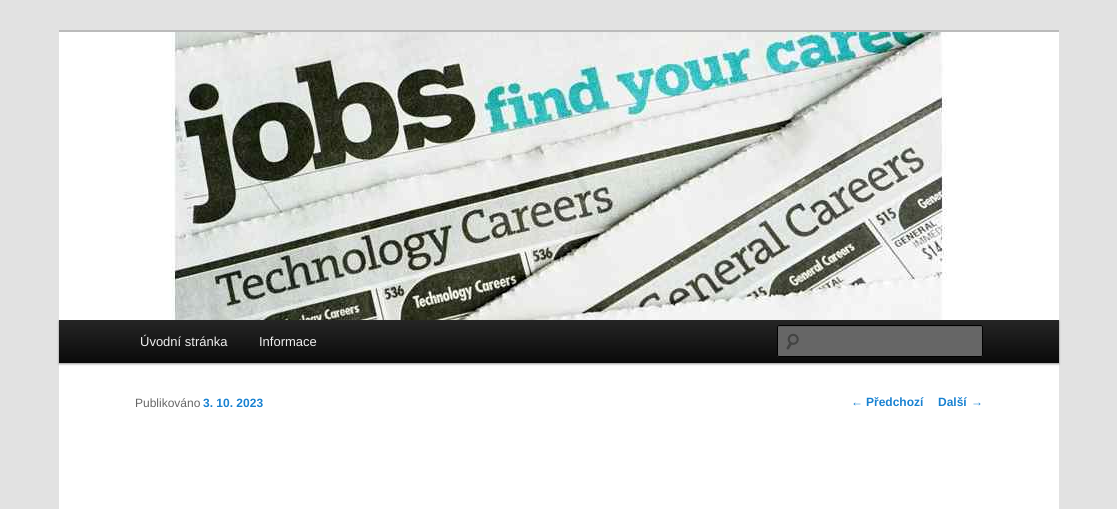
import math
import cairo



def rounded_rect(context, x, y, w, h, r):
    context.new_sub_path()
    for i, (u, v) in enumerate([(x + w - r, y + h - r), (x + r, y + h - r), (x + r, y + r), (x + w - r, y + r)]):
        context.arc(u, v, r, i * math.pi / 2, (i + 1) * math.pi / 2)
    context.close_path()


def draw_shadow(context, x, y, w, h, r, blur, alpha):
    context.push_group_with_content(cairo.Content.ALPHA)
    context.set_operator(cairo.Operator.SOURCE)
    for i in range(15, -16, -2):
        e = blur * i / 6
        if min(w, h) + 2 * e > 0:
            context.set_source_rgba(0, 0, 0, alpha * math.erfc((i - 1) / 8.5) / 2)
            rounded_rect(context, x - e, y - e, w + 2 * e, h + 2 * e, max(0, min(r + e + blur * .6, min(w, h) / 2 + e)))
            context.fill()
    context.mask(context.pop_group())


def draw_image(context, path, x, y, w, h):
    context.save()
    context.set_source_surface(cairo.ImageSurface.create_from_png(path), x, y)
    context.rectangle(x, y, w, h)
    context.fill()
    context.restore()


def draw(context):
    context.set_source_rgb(226 / 255, 226 / 255, 226 / 255)
    context.paint()
    context.set_source_rgb(1, 1, 1)
    context.rectangle(59, 363, 1000, 146)
    context.fill()
    context.set_source_rgb(187 / 255, 187 / 255, 187 / 255)
    context.rectangle(59, 30, 1000, 2)
    context.fill()
    context.set_source_rgb(0, 0, 0)
    draw_shadow(context, 59, 321, 1000, 43, 0, 1, 0.4)
    draw_image(context, "images/1.png", 59, 32, 1000, 288)
    gradient = cairo.LinearGradient(559, 320, 559, 363)
    gradient.add_color_stop_rgba(0, 37 / 255, 37 / 255, 37 / 255, 1)
    gradient.add_color_stop_rgba(1, 10 / 255, 10 / 255, 10 / 255, 1)
    context.set_source(gradient)
    context.rectangle(59, 320, 1000, 43)
    context.fill()
    context.set_source_rgb(102 / 255, 102 / 255, 102 / 255)
    rounded_rect(context, 777, 325, 206, 32, 2)
    context.fill()
    draw_image(context, "images/2.png", 786, 333, 13, 17)
    context.set_source_rgb(92 / 255, 92 / 255, 92 / 255)
    context.new_path()
    context.move_to(779, 327)
    context.line_to(982, 327)
    context.line_to(982, 328)
    context.line_to(982, 326)
    context.line_to(981, 326)
    context.line_to(779, 326)
    context.curve_to(778, 326, 778, 327, 778, 328)
    context.curve_to(778, 327, 778, 327, 779, 327)
    context.close_path()
    context.fill()
    rounded_rect(context, 777.5, 325.5, 205, 31, 1.5)
    context.set_source_rgb(0, 0, 0)
    context.set_line_width(1)
    context.stroke()
    context.select_font_face("Liberation Sans")
    context.set_font_size(13)
    context.set_source_rgb(238 / 255, 238 / 255, 238 / 255)
    context.move_to(140, 346)
    context.show_text("Úvodní stránka")
    context.move_to(259, 346)
    context.show_text("Informace")
    context.set_font_size(12)
    context.set_source_rgb(102 / 255, 102 / 255, 102 / 255)
    context.move_to(135, 407)
    context.show_text("Publikováno")
    context.select_font_face("Liberation Sans", cairo.FontSlant.NORMAL, cairo.FontWeight.BOLD)
    context.set_source_rgb(25 / 255, 130 / 255, 209 / 255)
    context.move_to(203, 407)
    context.show_text("3. 10. 2023")
    context.select_font_face("Liberation Sans")
    context.move_to(851, 406)
    context.show_text("←")
    context.select_font_face("Liberation Sans", cairo.FontSlant.NORMAL, cairo.FontWeight.BOLD)
    context.move_to(866, 406)
    context.show_text("Předchozí")
    context.move_to(938, 406)
    context.show_text("Další")
    context.select_font_face("Liberation Sans")
    context.move_to(971, 406)
    context.show_text("→")


surface = cairo.ImageSurface(cairo.Format.RGB24, 1117, 509)
context = cairo.Context(surface)
options = cairo.FontOptions()
options.set_hint_metrics(cairo.HintMetrics.OFF)
options.set_hint_style(cairo.HintStyle.NONE)
context.set_font_options(options)
context.set_miter_limit(4)
draw(context)
surface.write_to_png("out.png")
